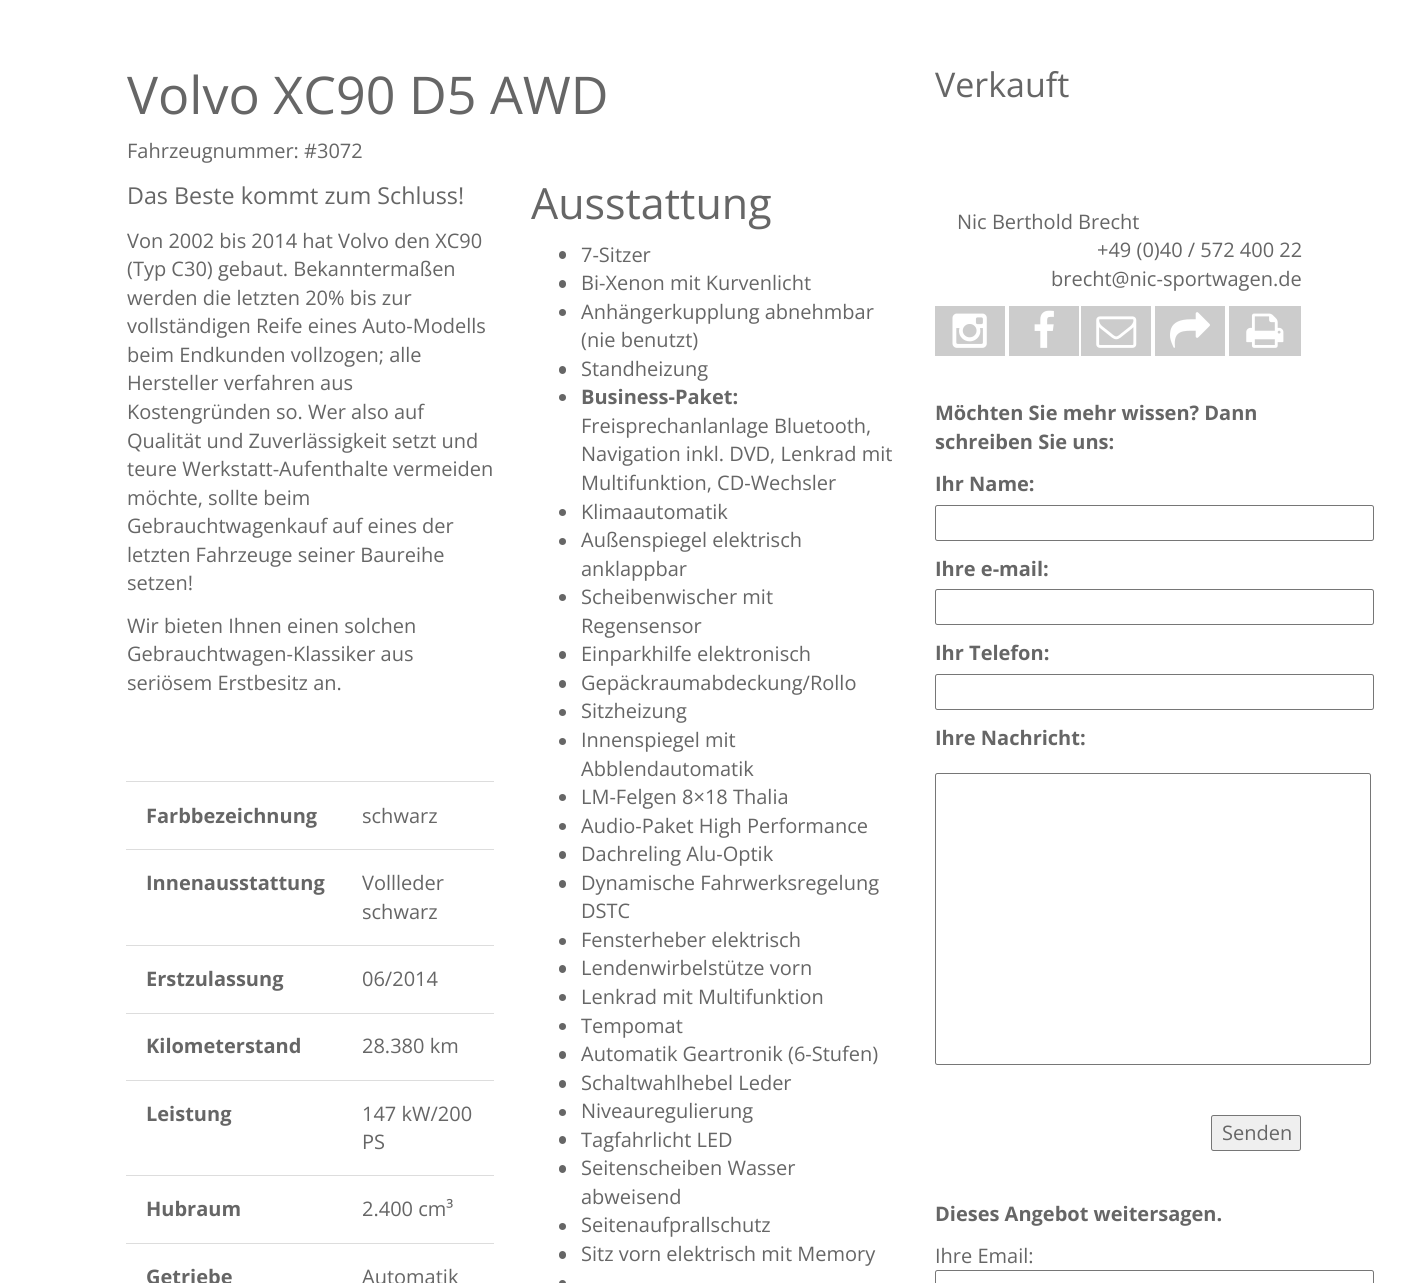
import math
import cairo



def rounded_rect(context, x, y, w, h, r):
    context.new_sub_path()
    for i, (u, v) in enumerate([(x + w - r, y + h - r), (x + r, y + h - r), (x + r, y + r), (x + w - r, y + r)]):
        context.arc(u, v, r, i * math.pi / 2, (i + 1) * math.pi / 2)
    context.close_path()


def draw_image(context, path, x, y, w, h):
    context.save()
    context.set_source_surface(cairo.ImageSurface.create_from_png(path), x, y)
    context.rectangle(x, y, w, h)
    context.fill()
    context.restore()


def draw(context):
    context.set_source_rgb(1, 1, 1)
    context.paint()
    context.set_source_rgb(221 / 255, 221 / 255, 221 / 255)
    context.rectangle(126, 781, 368, 1)
    context.fill()
    context.rectangle(126, 849, 368, 1)
    context.fill()
    context.rectangle(126, 945, 368, 1)
    context.fill()
    context.rectangle(126, 1013, 368, 1)
    context.fill()
    context.rectangle(126, 1080, 368, 1)
    context.fill()
    context.rectangle(126, 1175, 368, 1)
    context.fill()
    context.rectangle(126, 1243, 368, 1)
    context.fill()
    context.set_source_rgb(102 / 255, 102 / 255, 102 / 255)
    rounded_rect(context, 559, 251, 7, 8, 3.5)
    context.fill()
    rounded_rect(context, 559, 280, 7, 8, 3.5)
    context.fill()
    context.arc(562.5, 312.5, 3.5, 0, 2 * math.pi)
    context.fill()
    rounded_rect(context, 559, 366, 7, 8, 3.5)
    context.fill()
    context.arc(562.5, 397.5, 3.5, 0, 2 * math.pi)
    context.fill()
    context.arc(562.5, 512.5, 3.5, 0, 2 * math.pi)
    context.fill()
    context.arc(562.5, 541.5, 3.5, 0, 2 * math.pi)
    context.fill()
    context.arc(562.5, 597.5, 3.5, 0, 2 * math.pi)
    context.fill()
    rounded_rect(context, 559, 651, 7, 8, 3.5)
    context.fill()
    rounded_rect(context, 559, 680, 7, 8, 3.5)
    context.fill()
    context.arc(562.5, 712.5, 3.5, 0, 2 * math.pi)
    context.fill()
    context.arc(562.5, 741.5, 3.5, 0, 2 * math.pi)
    context.fill()
    context.arc(562.5, 797.5, 3.5, 0, 2 * math.pi)
    context.fill()
    context.arc(562.5, 826.5, 3.5, 0, 2 * math.pi)
    context.fill()
    rounded_rect(context, 559, 851, 7, 8, 3.5)
    context.fill()
    rounded_rect(context, 559, 880, 7, 8, 3.5)
    context.fill()
    context.arc(562.5, 941.5, 3.5, 0, 2 * math.pi)
    context.fill()
    rounded_rect(context, 559, 965, 7, 8, 3.5)
    context.fill()
    context.arc(562.5, 997.5, 3.5, 0, 2 * math.pi)
    context.fill()
    context.arc(562.5, 1026.5, 3.5, 0, 2 * math.pi)
    context.fill()
    rounded_rect(context, 559, 1051, 7, 8, 3.5)
    context.fill()
    rounded_rect(context, 559, 1080, 7, 8, 3.5)
    context.fill()
    context.arc(562.5, 1112.5, 3.5, 0, 2 * math.pi)
    context.fill()
    rounded_rect(context, 559, 1136, 7, 8, 3.5)
    context.fill()
    rounded_rect(context, 559, 1165, 7, 8, 3.5)
    context.fill()
    context.arc(562.5, 1226.5, 3.5, 0, 2 * math.pi)
    context.fill()
    rounded_rect(context, 559, 1251, 7, 8, 3.5)
    context.fill()
    context.arc(562.5, 1283.5, 3.5, 0, 2 * math.pi)
    context.fill()
    context.set_source_rgb(204 / 255, 204 / 255, 204 / 255)
    context.rectangle(935, 306, 70, 50)
    context.fill()
    draw_image(context, "images/1.png", 952, 313, 35, 35)
    context.rectangle(1009, 306, 70, 50)
    context.fill()
    draw_image(context, "images/2.png", 1034, 310, 20, 38)
    context.rectangle(1081, 306, 70, 50)
    context.fill()
    draw_image(context, "images/3.png", 1096, 316, 41, 32)
    context.rectangle(1155, 306, 70, 50)
    context.fill()
    draw_image(context, "images/4.png", 1170, 312, 40, 36)
    context.rectangle(1229, 306, 72, 50)
    context.fill()
    draw_image(context, "images/5.png", 1246, 313, 38, 35)
    rounded_rect(context, 935.5, 505.5, 438, 35, 2)
    context.set_source_rgb(118 / 255, 118 / 255, 118 / 255)
    context.set_line_width(1)
    context.stroke()
    rounded_rect(context, 935.5, 589.5, 438, 35, 2)
    context.stroke()
    rounded_rect(context, 935.5, 674.5, 438, 35, 2)
    context.stroke()
    rounded_rect(context, 935.5, 773.5, 435, 291, 2)
    context.stroke()
    context.set_source_rgb(239 / 255, 239 / 255, 239 / 255)
    rounded_rect(context, 1211.5, 1115.5, 89, 35, 2)
    context.fill_preserve()
    context.set_source_rgb(118 / 255, 118 / 255, 118 / 255)
    context.stroke()
    rounded_rect(context, 935.5, 1270.5, 438, 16, 2)
    context.stroke()
    context.select_font_face("Open Sans")
    context.set_font_size(52)
    context.set_source_rgb(102 / 255, 102 / 255, 102 / 255)
    context.move_to(127, 114)
    context.show_text("Volvo XC90 D5 AWD")
    context.set_font_size(20)
    context.move_to(127, 158)
    context.show_text("Fahrzeugnummer: #3072")
    context.set_font_size(23.3)
    context.move_to(127, 204)
    context.show_text("Das Beste kommt zum Schluss!")
    context.set_font_size(20)
    context.move_to(127, 248)
    context.show_text("Von 2002 bis 2014 hat Volvo den XC90")
    context.move_to(127, 276)
    context.show_text("(Typ C30) gebaut. Bekanntermaßen")
    context.move_to(127, 305)
    context.show_text("werden die letzten 20% bis zur")
    context.move_to(127, 333)
    context.show_text("vollständigen Reife eines Auto-Modells")
    context.move_to(127, 362)
    context.show_text("beim Endkunden vollzogen; alle")
    context.move_to(127, 390)
    context.show_text("Hersteller verfahren aus")
    context.move_to(127, 419)
    context.show_text("Kostengründen so. Wer also auf")
    context.move_to(127, 448)
    context.show_text("Qualität und Zuverlässigkeit setzt und")
    context.move_to(127, 476)
    context.show_text("teure Werkstatt-Aufenthalte vermeiden")
    context.move_to(127, 505)
    context.show_text("möchte, sollte beim")
    context.move_to(127, 533)
    context.show_text("Gebrauchtwagenkauf auf eines der")
    context.move_to(127, 562)
    context.show_text("letzten Fahrzeuge seiner Baureihe")
    context.move_to(127, 590)
    context.show_text("setzen!")
    context.move_to(127, 633)
    context.show_text("Wir bieten Ihnen einen solchen")
    context.move_to(127, 661)
    context.show_text("Gebrauchtwagen-Klassiker aus")
    context.move_to(127, 690)
    context.show_text("seriösem Erstbesitz an.")
    context.select_font_face("Open Sans", cairo.FontSlant.NORMAL, cairo.FontWeight.BOLD)
    context.move_to(146, 823)
    context.show_text("Farbbezeichnung")
    context.select_font_face("Open Sans")
    context.move_to(362, 823)
    context.show_text("schwarz")
    context.select_font_face("Open Sans", cairo.FontSlant.NORMAL, cairo.FontWeight.BOLD)
    context.move_to(146, 890)
    context.show_text("Innenausstattung")
    context.select_font_face("Open Sans")
    context.move_to(362, 890)
    context.show_text("Vollleder")
    context.move_to(362, 919)
    context.show_text("schwarz")
    context.select_font_face("Open Sans", cairo.FontSlant.NORMAL, cairo.FontWeight.BOLD)
    context.move_to(146, 986)
    context.show_text("Erstzulassung")
    context.select_font_face("Open Sans")
    context.move_to(362, 986)
    context.show_text("06/2014")
    context.select_font_face("Open Sans", cairo.FontSlant.NORMAL, cairo.FontWeight.BOLD)
    context.move_to(146, 1053)
    context.show_text("Kilometerstand")
    context.select_font_face("Open Sans")
    context.move_to(362, 1053)
    context.show_text("28.380 km")
    context.select_font_face("Open Sans", cairo.FontSlant.NORMAL, cairo.FontWeight.BOLD)
    context.move_to(146, 1121)
    context.show_text("Leistung")
    context.select_font_face("Open Sans")
    context.move_to(362, 1121)
    context.show_text("147 kW/200")
    context.move_to(362, 1149)
    context.show_text("PS")
    context.select_font_face("Open Sans", cairo.FontSlant.NORMAL, cairo.FontWeight.BOLD)
    context.move_to(146, 1216)
    context.show_text("Hubraum")
    context.select_font_face("Open Sans")
    context.move_to(362, 1216)
    context.show_text("2.400 cm³")
    context.select_font_face("Open Sans", cairo.FontSlant.NORMAL, cairo.FontWeight.BOLD)
    context.move_to(146, 1284)
    context.show_text("Getriebe")
    context.select_font_face("Open Sans")
    context.move_to(362, 1284)
    context.show_text("Automatik")
    context.set_font_size(43)
    context.move_to(531, 219)
    context.show_text("Ausstattung")
    context.set_font_size(20)
    context.move_to(581, 262)
    context.show_text("7-Sitzer")
    context.move_to(581, 290)
    context.show_text("Bi-Xenon mit Kurvenlicht")
    context.move_to(581, 319)
    context.show_text("Anhängerkupplung abnehmbar")
    context.move_to(581, 347)
    context.show_text("(nie benutzt)")
    context.move_to(581, 376)
    context.show_text("Standheizung")
    context.select_font_face("Open Sans", cairo.FontSlant.NORMAL, cairo.FontWeight.BOLD)
    context.move_to(581, 404)
    context.show_text("Business-Paket:")
    context.select_font_face("Open Sans")
    context.move_to(581, 433)
    context.show_text("Freisprechanlanlage Bluetooth,")
    context.move_to(581, 461)
    context.show_text("Navigation inkl. DVD, Lenkrad mit")
    context.move_to(581, 490)
    context.show_text("Multifunktion, CD-Wechsler")
    context.move_to(581, 519)
    context.show_text("Klimaautomatik")
    context.move_to(581, 547)
    context.show_text("Außenspiegel elektrisch")
    context.move_to(581, 576)
    context.show_text("anklappbar")
    context.move_to(581, 604)
    context.show_text("Scheibenwischer mit")
    context.move_to(581, 633)
    context.show_text("Regensensor")
    context.move_to(581, 661)
    context.show_text("Einparkhilfe elektronisch")
    context.move_to(581, 690)
    context.show_text("Gepäckraumabdeckung/Rollo")
    context.move_to(581, 718)
    context.show_text("Sitzheizung")
    context.move_to(581, 747)
    context.show_text("Innenspiegel mit")
    context.move_to(581, 776)
    context.show_text("Abblendautomatik")
    context.move_to(581, 804)
    context.show_text("LM-Felgen 8×18 Thalia")
    context.move_to(581, 833)
    context.show_text("Audio-Paket High Performance")
    context.move_to(581, 861)
    context.show_text("Dachreling Alu-Optik")
    context.move_to(581, 890)
    context.show_text("Dynamische Fahrwerksregelung")
    context.move_to(581, 918)
    context.show_text("DSTC")
    context.move_to(581, 947)
    context.show_text("Fensterheber elektrisch")
    context.move_to(581, 975)
    context.show_text("Lendenwirbelstütze vorn")
    context.move_to(581, 1004)
    context.show_text("Lenkrad mit Multifunktion")
    context.move_to(581, 1033)
    context.show_text("Tempomat")
    context.move_to(581, 1061)
    context.show_text("Automatik Geartronik (6-Stufen)")
    context.move_to(581, 1090)
    context.show_text("Schaltwahlhebel Leder")
    context.move_to(581, 1118)
    context.show_text("Niveauregulierung")
    context.move_to(581, 1147)
    context.show_text("Tagfahrlicht LED")
    context.move_to(581, 1175)
    context.show_text("Seitenscheiben Wasser")
    context.move_to(581, 1204)
    context.show_text("abweisend")
    context.move_to(581, 1232)
    context.show_text("Seitenaufprallschutz")
    context.move_to(581, 1261)
    context.show_text("Sitz vorn elektrisch mit Memory")
    context.set_font_size(34)
    context.move_to(935, 97)
    context.show_text("Verkauft")
    context.set_font_size(20)
    context.move_to(957, 229)
    context.show_text("Nic Berthold Brecht")
    context.move_to(1097, 257)
    context.show_text("+49 (0)40 / 572 400 22")
    context.move_to(1051, 286)
    context.show_text("brecht@nic-sportwagen.de")
    context.select_font_face("Open Sans", cairo.FontSlant.NORMAL, cairo.FontWeight.BOLD)
    context.move_to(935, 420)
    context.show_text("Möchten Sie mehr wissen? Dann")
    context.move_to(935, 449)
    context.show_text("schreiben Sie uns:")
    context.move_to(935, 491)
    context.show_text("Ihr Name:")
    context.move_to(935, 576)
    context.show_text("Ihre e-mail:")
    context.move_to(935, 660)
    context.show_text("Ihr Telefon:")
    context.move_to(935, 745)
    context.show_text("Ihre Nachricht:")
    context.select_font_face("Open Sans")
    context.move_to(1222, 1140)
    context.show_text("Senden")
    context.select_font_face("Open Sans", cairo.FontSlant.NORMAL, cairo.FontWeight.BOLD)
    context.move_to(935, 1221)
    context.show_text("Dieses Angebot weitersagen.")
    context.select_font_face("Open Sans")
    context.move_to(935, 1263)
    context.show_text("Ihre Email:")


surface = cairo.ImageSurface(cairo.Format.RGB24, 1428, 1283)
context = cairo.Context(surface)
options = cairo.FontOptions()
options.set_hint_metrics(cairo.HintMetrics.OFF)
options.set_hint_style(cairo.HintStyle.NONE)
context.set_font_options(options)
context.set_miter_limit(4)
draw(context)
surface.write_to_png("out.png")
